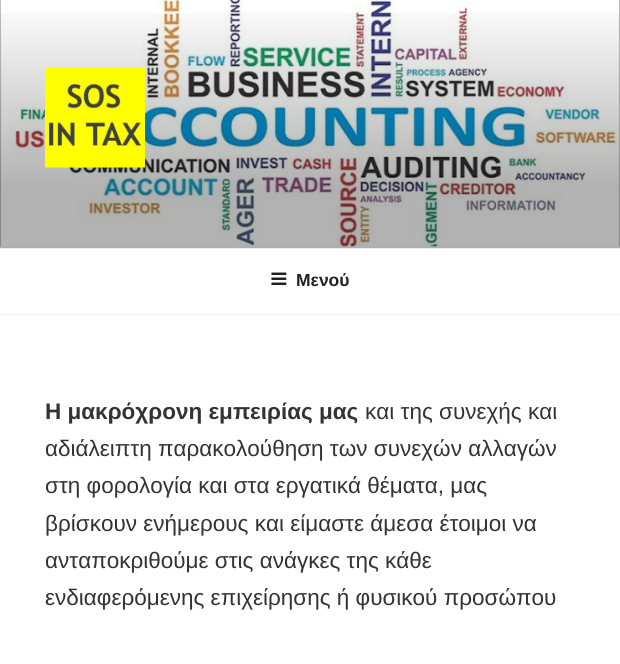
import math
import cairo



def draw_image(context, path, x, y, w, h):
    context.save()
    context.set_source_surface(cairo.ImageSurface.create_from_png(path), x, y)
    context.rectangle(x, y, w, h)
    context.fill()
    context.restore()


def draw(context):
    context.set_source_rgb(1, 1, 1)
    context.paint()
    context.set_source_rgb(250 / 255, 250 / 255, 250 / 255)
    context.rectangle(0, 246, 620, 2)
    context.fill()
    draw_image(context, "images/1.png", 0, 0, 620, 247)
    gradient = cairo.LinearGradient(310, 0, 310, 248)
    gradient.add_color_stop_rgba(0, 0, 0, 0, 0)
    gradient.add_color_stop_rgba(0.75, 0, 0, 0, 0.3)
    gradient.add_color_stop_rgba(1, 0, 0, 0, 0.3)
    context.set_source(gradient)
    context.rectangle(0, 13, 620, 235)
    context.fill()
    draw_image(context, "images/2.png", 45, 67, 100, 101)
    context.set_source_rgb(238 / 255, 238 / 255, 238 / 255)
    context.rectangle(0, 248, 620, 1)
    context.fill()
    context.rectangle(0, 314, 620, 1)
    context.fill()
    draw_image(context, "images/3.png", 271, 272, 16, 13)
    context.select_font_face("Liberation Sans", cairo.FontSlant.NORMAL, cairo.FontWeight.BOLD)
    context.set_font_size(17.5)
    context.set_source_rgb(34 / 255, 34 / 255, 34 / 255)
    context.move_to(296, 286)
    context.show_text("Μενού")
    context.set_font_size(22.5)
    context.set_source_rgb(51 / 255, 51 / 255, 51 / 255)
    context.move_to(45, 419)
    context.show_text("Η μακρόχρονη εμπειρίας μας")
    context.select_font_face("Liberation Sans")
    context.move_to(365, 419)
    context.show_text("και της συνεχής και")
    context.move_to(45, 456)
    context.show_text("αδιάλειπτη παρακολούθηση των συνεχών αλλαγών")
    context.move_to(45, 493)
    context.show_text("στη φορολογία και στα εργατικά θέματα, μας")
    context.move_to(45, 531)
    context.show_text("βρίσκουν ενήμερους και είμαστε άμεσα έτοιμοι να")
    context.move_to(45, 568)
    context.show_text("ανταποκριθούμε στις ανάγκες της κάθε")
    context.move_to(45, 605)
    context.show_text("ενδιαφερόμενης επιχείρησης ή φυσικού προσώπου")


surface = cairo.ImageSurface(cairo.Format.RGB24, 620, 664)
context = cairo.Context(surface)
options = cairo.FontOptions()
options.set_hint_metrics(cairo.HintMetrics.OFF)
options.set_hint_style(cairo.HintStyle.NONE)
context.set_font_options(options)
context.set_miter_limit(4)
draw(context)
surface.write_to_png("out.png")
